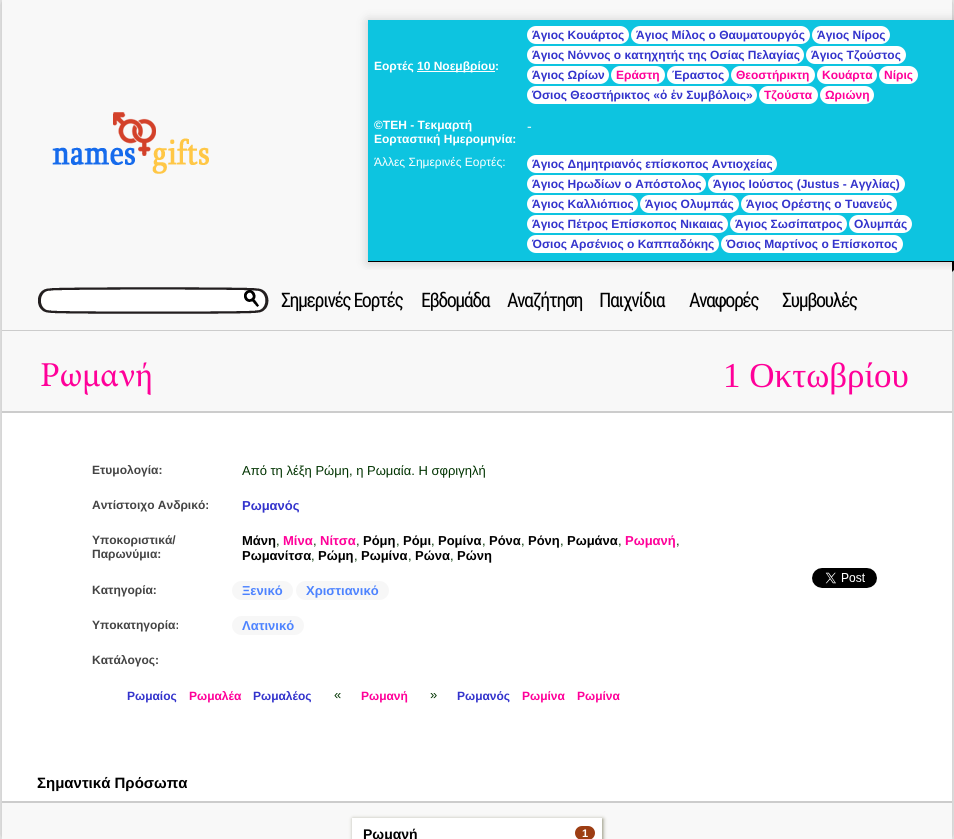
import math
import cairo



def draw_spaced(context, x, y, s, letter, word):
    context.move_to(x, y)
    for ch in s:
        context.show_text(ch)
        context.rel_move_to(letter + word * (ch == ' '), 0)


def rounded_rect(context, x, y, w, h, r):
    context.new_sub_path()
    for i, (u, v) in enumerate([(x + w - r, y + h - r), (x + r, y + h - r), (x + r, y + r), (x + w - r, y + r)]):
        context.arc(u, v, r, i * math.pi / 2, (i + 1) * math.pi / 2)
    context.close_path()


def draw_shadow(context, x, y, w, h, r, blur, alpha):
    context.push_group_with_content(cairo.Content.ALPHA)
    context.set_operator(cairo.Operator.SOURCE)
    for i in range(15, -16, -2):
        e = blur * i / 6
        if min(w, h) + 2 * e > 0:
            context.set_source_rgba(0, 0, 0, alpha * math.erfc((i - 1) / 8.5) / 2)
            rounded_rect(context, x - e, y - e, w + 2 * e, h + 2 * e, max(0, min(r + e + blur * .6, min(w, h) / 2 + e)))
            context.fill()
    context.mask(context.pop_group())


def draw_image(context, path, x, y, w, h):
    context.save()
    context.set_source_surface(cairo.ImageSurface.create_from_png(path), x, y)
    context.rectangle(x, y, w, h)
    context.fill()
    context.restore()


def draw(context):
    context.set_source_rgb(252 / 255, 252 / 255, 252 / 255)
    context.paint()
    context.set_source_rgb(0, 0, 0)
    draw_shadow(context, 2, 0, 950, 839, 0, 10, 0.3)
    context.set_source_rgb(1, 1, 1)
    context.rectangle(2, 413, 950, 388)
    context.fill()
    context.set_source_rgb(248 / 255, 248 / 255, 248 / 255)
    context.rectangle(2, 0, 950, 270)
    context.fill()
    draw_image(context, "images/1.png", 52, 112, 157, 62)
    context.set_source_rgb(0, 0, 0)
    draw_shadow(context, 368, 21, 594, 242, 0, 5.5, 0.2)
    context.set_source_rgb(13 / 255, 196 / 255, 224 / 255)
    context.rectangle(368, 20, 586, 241)
    context.fill()
    context.set_source_rgb(0, 0, 0)
    context.rectangle(368, 261, 586, 1)
    context.fill()
    context.set_source_rgb(1, 1, 1)
    context.rectangle(417, 71, 78, 1)
    context.fill()
    rounded_rect(context, 527, 26, 102, 18, 9)
    context.fill()
    rounded_rect(context, 631, 26, 179, 18, 9)
    context.fill()
    rounded_rect(context, 812, 26, 78, 18, 9)
    context.fill()
    rounded_rect(context, 527, 46, 277, 18, 9)
    context.fill()
    rounded_rect(context, 806, 46, 100, 18, 9)
    context.fill()
    rounded_rect(context, 527, 66, 82, 18, 9)
    context.fill()
    rounded_rect(context, 611, 66, 54, 18, 9)
    context.fill()
    rounded_rect(context, 667, 66, 62, 18, 9)
    context.fill()
    rounded_rect(context, 731, 66, 84, 18, 9)
    context.fill()
    rounded_rect(context, 817, 66, 60, 18, 9)
    context.fill()
    rounded_rect(context, 879, 66, 39, 18, 9)
    context.fill()
    rounded_rect(context, 527, 86, 230, 18, 9)
    context.fill()
    rounded_rect(context, 759, 86, 59, 18, 9)
    context.fill()
    rounded_rect(context, 820, 86, 54, 18, 9)
    context.fill()
    rounded_rect(context, 527, 155, 250, 18, 9)
    context.fill()
    rounded_rect(context, 527, 175, 179, 18, 9)
    context.fill()
    rounded_rect(context, 708, 175, 197, 18, 9)
    context.fill()
    rounded_rect(context, 527, 195, 111, 18, 9)
    context.fill()
    rounded_rect(context, 640, 195, 99, 18, 9)
    context.fill()
    rounded_rect(context, 741, 195, 156, 18, 9)
    context.fill()
    rounded_rect(context, 527, 215, 201, 18, 9)
    context.fill()
    rounded_rect(context, 730, 215, 117, 18, 9)
    context.fill()
    rounded_rect(context, 849, 215, 63, 18, 9)
    context.fill()
    rounded_rect(context, 527, 235, 192, 18, 9)
    context.fill()
    rounded_rect(context, 721, 235, 182, 18, 9)
    context.fill()
    context.set_source_rgb(0, 0, 0)
    context.new_path()
    context.move_to(952, 262)
    context.line_to(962, 262)
    context.line_to(952, 272)
    context.close_path()
    context.fill()
    context.set_source_rgb(248 / 255, 248 / 255, 248 / 255)
    context.rectangle(2, 270, 950, 60)
    context.fill()
    draw_image(context, "images/2.png", 38, 287, 231, 27)
    draw_image(context, "images/3.png", 244, 290, 15, 17)
    context.rectangle(2, 331, 950, 80)
    context.fill()
    context.set_source_rgb(204 / 255, 204 / 255, 204 / 255)
    context.rectangle(2, 330, 950, 1)
    context.fill()
    context.rectangle(2, 411, 950, 2)
    context.fill()
    draw_image(context, "images/4.png", 41, 362, 110, 33)
    context.set_source_rgb(247 / 255, 247 / 255, 247 / 255)
    rounded_rect(context, 232, 581, 61, 19, 9.5)
    context.fill()
    rounded_rect(context, 296, 581, 93, 19, 9.5)
    context.fill()
    rounded_rect(context, 232, 616, 72, 19, 9.5)
    context.fill()
    draw_image(context, "images/5.png", 812, 568, 65, 20)
    context.set_source_rgb(204 / 255, 204 / 255, 204 / 255)
    context.rectangle(2, 801, 950, 2)
    context.fill()
    context.set_source_rgb(248 / 255, 248 / 255, 248 / 255)
    context.rectangle(2, 803, 950, 36)
    context.fill()
    context.set_source_rgb(143 / 255, 142 / 255, 118 / 255)
    draw_shadow(context, 353, 819, 250, 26, 0, 2, 1)
    context.set_source_rgb(1, 1, 1)
    context.rectangle(352, 818, 250, 21)
    context.fill()
    context.set_source_rgb(157 / 255, 61 / 255, 19 / 255)
    rounded_rect(context, 575, 826, 20, 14, 7)
    context.fill()
    context.select_font_face("Liberation Sans", cairo.FontSlant.NORMAL, cairo.FontWeight.BOLD)
    context.set_font_size(12)
    context.set_source_rgb(1, 1, 1)
    context.move_to(374, 70)
    context.show_text("Εορτές")
    context.move_to(417, 70)
    context.show_text("10 Νοεμβρίου:")
    context.set_source_rgb(51 / 255, 51 / 255, 204 / 255)
    context.move_to(532, 39)
    context.show_text("Άγιος Κουάρτος")
    context.move_to(636, 39)
    context.show_text("Άγιος Μίλος ο Θαυματουργός")
    context.move_to(817, 39)
    context.show_text("Άγιος Νίρος")
    context.move_to(532, 59)
    context.show_text("Άγιος Νόννος ο κατηχητής της Οσίας Πελαγίας")
    context.move_to(811, 59)
    context.show_text("Άγιος Τζούστος")
    context.move_to(532, 79)
    context.show_text("Άγιος Ωρίων")
    context.set_source_rgb(1, 0, 153 / 255)
    context.move_to(616, 79)
    context.show_text("Εράστη")
    context.set_source_rgb(51 / 255, 51 / 255, 204 / 255)
    context.move_to(672, 79)
    context.show_text("Έραστος")
    context.set_source_rgb(1, 0, 153 / 255)
    context.move_to(736, 79)
    context.show_text("Θεοστήρικτη")
    context.move_to(822, 79)
    context.show_text("Κουάρτα")
    context.move_to(884, 79)
    context.show_text("Νίρις")
    context.set_source_rgb(51 / 255, 51 / 255, 204 / 255)
    context.move_to(532, 99)
    context.show_text("Όσιος Θεοστήρικτος «ὁ ἐν Συμβόλοις»")
    context.set_source_rgb(1, 0, 153 / 255)
    context.move_to(764, 99)
    context.show_text("Τζούστα")
    context.move_to(825, 99)
    context.show_text("Ωριώνη")
    context.set_source_rgb(1, 1, 1)
    context.move_to(374, 129)
    context.show_text("©ΤΕΗ - Τεκμαρτή")
    context.move_to(374, 143)
    context.show_text("Εορταστική Ημερομηνία:")
    context.select_font_face("Liberation Sans")
    context.set_font_size(14)
    context.move_to(527, 131)
    context.show_text("-")
    context.set_font_size(12)
    context.move_to(374, 166)
    context.show_text("Άλλες Σημερινές Εορτές:")
    context.select_font_face("Liberation Sans", cairo.FontSlant.NORMAL, cairo.FontWeight.BOLD)
    context.set_source_rgb(51 / 255, 51 / 255, 204 / 255)
    context.move_to(532, 168)
    context.show_text("Άγιος Δημητριανός επίσκοπος Αντιοχείας")
    context.move_to(532, 188)
    context.show_text("Άγιος Ηρωδίων ο Απόστολος")
    context.move_to(713, 188)
    context.show_text("Άγιος Ιούστος (Justus - Αγγλίας)")
    context.move_to(532, 208)
    context.show_text("Άγιος Καλλιόπιος")
    context.move_to(645, 208)
    context.show_text("Άγιος Ολυμπάς")
    context.move_to(746, 208)
    context.show_text("Άγιος Ορέστης ο Τυανεύς")
    context.move_to(532, 228)
    context.show_text("Άγιος Πέτρος Επίσκοπος Νικαιας")
    context.move_to(735, 228)
    context.show_text("Άγιος Σωσίπατρος")
    context.move_to(854, 228)
    context.show_text("Ολυμπάς")
    context.move_to(532, 248)
    context.show_text("Όσιος Αρσένιος ο Καππαδόκης")
    context.move_to(726, 248)
    context.show_text("Όσιος Μαρτίνος ο Επίσκοπος")
    context.select_font_face("Roboto Condensed")
    context.set_font_size(20)
    context.set_source_rgb(0, 0, 0)
    draw_spaced(context, 281, 307, "Σημερινές Εορτές", -1.5, 0)
    draw_spaced(context, 421, 307, "Εβδομάδα", -1.5, 0)
    draw_spaced(context, 507, 307, "Αναζήτηση", -1.5, 0)
    draw_spaced(context, 599, 307, "Παιχνίδια", -1.5, 0)
    draw_spaced(context, 689, 307, "Αναφορές", -1.5, 0)
    draw_spaced(context, 782, 307, "Συμβουλές", -1.5, 0)
    context.select_font_face("Liberation Serif")
    context.set_font_size(35)
    context.set_source_rgb(1, 0, 153 / 255)
    context.move_to(723, 387)
    context.show_text("1 Οκτωβρίου")
    context.select_font_face("Liberation Sans", cairo.FontSlant.NORMAL, cairo.FontWeight.BOLD)
    context.set_font_size(12)
    context.set_source_rgb(68 / 255, 68 / 255, 68 / 255)
    context.move_to(92, 474)
    context.show_text("Ετυμολογία:")
    context.select_font_face("Liberation Sans")
    context.set_font_size(13)
    context.set_source_rgb(0, 51 / 255, 0)
    context.move_to(242, 475)
    context.show_text("Από τη λέξη Ρώμη, η Ρωμαία. Η σφριγηλή")
    context.select_font_face("Liberation Sans", cairo.FontSlant.NORMAL, cairo.FontWeight.BOLD)
    context.set_font_size(12)
    context.set_source_rgb(68 / 255, 68 / 255, 68 / 255)
    context.move_to(92, 509)
    context.show_text("Αντίστοιχο Ανδρικό:")
    context.set_font_size(13)
    context.set_source_rgb(51 / 255, 51 / 255, 204 / 255)
    context.move_to(242, 510)
    context.show_text("Ρωμανός")
    context.set_font_size(12)
    context.set_source_rgb(68 / 255, 68 / 255, 68 / 255)
    context.move_to(92, 544)
    context.show_text("Υποκοριστικά/")
    context.move_to(92, 558)
    context.show_text("Παρωνύμια:")
    context.set_font_size(13)
    context.set_source_rgb(0, 0, 0)
    context.move_to(242, 545)
    context.show_text("Μάνη")
    context.select_font_face("Liberation Sans")
    context.set_source_rgb(0, 51 / 255, 0)
    context.move_to(276, 545)
    context.show_text(",")
    context.select_font_face("Liberation Sans", cairo.FontSlant.NORMAL, cairo.FontWeight.BOLD)
    context.set_source_rgb(1, 0, 153 / 255)
    context.move_to(283, 545)
    context.show_text("Μίνα")
    context.select_font_face("Liberation Sans")
    context.set_source_rgb(0, 51 / 255, 0)
    context.move_to(313, 545)
    context.show_text(",")
    context.select_font_face("Liberation Sans", cairo.FontSlant.NORMAL, cairo.FontWeight.BOLD)
    context.set_source_rgb(1, 0, 153 / 255)
    context.move_to(320, 545)
    context.show_text("Νίτσα")
    context.select_font_face("Liberation Sans")
    context.set_source_rgb(0, 51 / 255, 0)
    context.move_to(356, 545)
    context.show_text(",")
    context.select_font_face("Liberation Sans", cairo.FontSlant.NORMAL, cairo.FontWeight.BOLD)
    context.set_source_rgb(0, 0, 0)
    context.move_to(363, 545)
    context.show_text("Ρόμη")
    context.select_font_face("Liberation Sans")
    context.set_source_rgb(0, 51 / 255, 0)
    context.move_to(396, 545)
    context.show_text(",")
    context.select_font_face("Liberation Sans", cairo.FontSlant.NORMAL, cairo.FontWeight.BOLD)
    context.set_source_rgb(0, 0, 0)
    context.move_to(403, 545)
    context.show_text("Ρόμι")
    context.select_font_face("Liberation Sans")
    context.set_source_rgb(0, 51 / 255, 0)
    context.move_to(431, 545)
    context.show_text(",")
    context.select_font_face("Liberation Sans", cairo.FontSlant.NORMAL, cairo.FontWeight.BOLD)
    context.set_source_rgb(0, 0, 0)
    context.move_to(438, 545)
    context.show_text("Ρομίνα")
    context.select_font_face("Liberation Sans")
    context.set_source_rgb(0, 51 / 255, 0)
    context.move_to(482, 545)
    context.show_text(",")
    context.select_font_face("Liberation Sans", cairo.FontSlant.NORMAL, cairo.FontWeight.BOLD)
    context.set_source_rgb(0, 0, 0)
    context.move_to(489, 545)
    context.show_text("Ρόνα")
    context.select_font_face("Liberation Sans")
    context.set_source_rgb(0, 51 / 255, 0)
    context.move_to(521, 545)
    context.show_text(",")
    context.select_font_face("Liberation Sans", cairo.FontSlant.NORMAL, cairo.FontWeight.BOLD)
    context.set_source_rgb(0, 0, 0)
    context.move_to(528, 545)
    context.show_text("Ρόνη")
    context.select_font_face("Liberation Sans")
    context.set_source_rgb(0, 51 / 255, 0)
    context.move_to(560, 545)
    context.show_text(",")
    context.select_font_face("Liberation Sans", cairo.FontSlant.NORMAL, cairo.FontWeight.BOLD)
    context.set_source_rgb(0, 0, 0)
    context.move_to(567, 545)
    context.show_text("Ρωμάνα")
    context.select_font_face("Liberation Sans")
    context.set_source_rgb(0, 51 / 255, 0)
    context.move_to(618, 545)
    context.show_text(",")
    context.select_font_face("Liberation Sans", cairo.FontSlant.NORMAL, cairo.FontWeight.BOLD)
    context.set_source_rgb(1, 0, 153 / 255)
    context.move_to(625, 545)
    context.show_text("Ρωμανή")
    context.select_font_face("Liberation Sans")
    context.set_source_rgb(0, 51 / 255, 0)
    context.move_to(676, 545)
    context.show_text(",")
    context.select_font_face("Liberation Sans", cairo.FontSlant.NORMAL, cairo.FontWeight.BOLD)
    context.set_source_rgb(0, 0, 0)
    context.move_to(242, 560)
    context.show_text("Ρωμανίτσα")
    context.select_font_face("Liberation Sans")
    context.set_source_rgb(0, 51 / 255, 0)
    context.move_to(311, 560)
    context.show_text(",")
    context.select_font_face("Liberation Sans", cairo.FontSlant.NORMAL, cairo.FontWeight.BOLD)
    context.set_source_rgb(0, 0, 0)
    context.move_to(318, 560)
    context.show_text("Ρώμη")
    context.select_font_face("Liberation Sans")
    context.set_source_rgb(0, 51 / 255, 0)
    context.move_to(354, 560)
    context.show_text(",")
    context.select_font_face("Liberation Sans", cairo.FontSlant.NORMAL, cairo.FontWeight.BOLD)
    context.set_source_rgb(0, 0, 0)
    context.move_to(361, 560)
    context.show_text("Ρωμίνα")
    context.select_font_face("Liberation Sans")
    context.set_source_rgb(0, 51 / 255, 0)
    context.move_to(408, 560)
    context.show_text(",")
    context.select_font_face("Liberation Sans", cairo.FontSlant.NORMAL, cairo.FontWeight.BOLD)
    context.set_source_rgb(0, 0, 0)
    context.move_to(415, 560)
    context.show_text("Ρώνα")
    context.select_font_face("Liberation Sans")
    context.set_source_rgb(0, 51 / 255, 0)
    context.move_to(450, 560)
    context.show_text(",")
    context.select_font_face("Liberation Sans", cairo.FontSlant.NORMAL, cairo.FontWeight.BOLD)
    context.set_source_rgb(0, 0, 0)
    context.move_to(457, 560)
    context.show_text("Ρώνη")
    context.set_font_size(12)
    context.set_source_rgb(68 / 255, 68 / 255, 68 / 255)
    context.move_to(92, 594)
    context.show_text("Κατηγορία:")
    context.set_font_size(13)
    context.set_source_rgb(77 / 255, 131 / 255, 1)
    context.move_to(242, 595)
    context.show_text("Ξενικό")
    context.move_to(306, 595)
    context.show_text("Χριστιανικό")
    context.set_font_size(12)
    context.set_source_rgb(68 / 255, 68 / 255, 68 / 255)
    context.move_to(92, 629)
    context.show_text("Υποκατηγορία:")
    context.set_font_size(13)
    context.set_source_rgb(77 / 255, 131 / 255, 1)
    context.move_to(242, 630)
    context.show_text("Λατινικό")
    context.set_font_size(12)
    context.set_source_rgb(68 / 255, 68 / 255, 68 / 255)
    context.move_to(92, 664)
    context.show_text("Κατάλογος:")
    context.set_source_rgb(51 / 255, 51 / 255, 204 / 255)
    context.move_to(127, 700)
    context.show_text("Ρωμαίος")
    context.set_source_rgb(1, 0, 153 / 255)
    context.move_to(189, 700)
    context.show_text("Ρωμαλέα")
    context.set_source_rgb(51 / 255, 51 / 255, 204 / 255)
    context.move_to(253, 700)
    context.show_text("Ρωμαλέος")
    context.select_font_face("Liberation Sans")
    context.set_font_size(13)
    context.set_source_rgb(0, 51 / 255, 0)
    context.move_to(334, 699)
    context.show_text("«")
    context.select_font_face("Liberation Sans", cairo.FontSlant.NORMAL, cairo.FontWeight.BOLD)
    context.set_font_size(12)
    context.set_source_rgb(1, 0, 153 / 255)
    context.move_to(361, 700)
    context.show_text("Ρωμανή")
    context.select_font_face("Liberation Sans")
    context.set_font_size(13)
    context.set_source_rgb(0, 51 / 255, 0)
    context.move_to(430, 699)
    context.show_text("»")
    context.select_font_face("Liberation Sans", cairo.FontSlant.NORMAL, cairo.FontWeight.BOLD)
    context.set_font_size(12)
    context.set_source_rgb(51 / 255, 51 / 255, 204 / 255)
    context.move_to(457, 700)
    context.show_text("Ρωμανός")
    context.set_source_rgb(1, 0, 153 / 255)
    context.move_to(522, 700)
    context.show_text("Ρωμίνα")
    context.move_to(577, 700)
    context.show_text("Ρωμίνα")
    context.set_font_size(15)
    context.set_source_rgb(0, 0, 0)
    context.move_to(37, 788)
    context.show_text("Σημαντικά Πρόσωπα")
    context.set_font_size(14)
    context.move_to(363, 839)
    context.show_text("Ρωμανή")
    context.set_font_size(11)
    context.set_source_rgb(1, 1, 1)
    context.move_to(582, 837)
    context.show_text("1")


surface = cairo.ImageSurface(cairo.Format.RGB24, 954, 839)
context = cairo.Context(surface)
options = cairo.FontOptions()
options.set_hint_metrics(cairo.HintMetrics.OFF)
options.set_hint_style(cairo.HintStyle.NONE)
context.set_font_options(options)
context.set_miter_limit(4)
draw(context)
surface.write_to_png("out.png")
